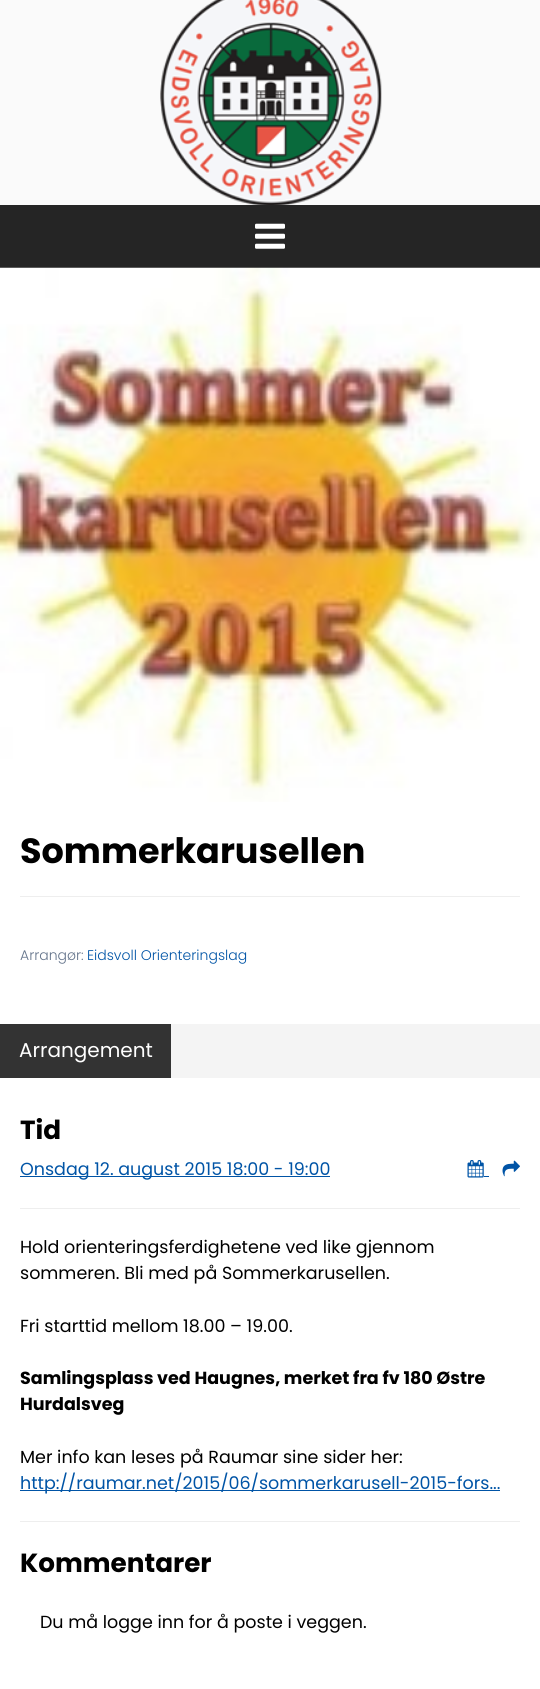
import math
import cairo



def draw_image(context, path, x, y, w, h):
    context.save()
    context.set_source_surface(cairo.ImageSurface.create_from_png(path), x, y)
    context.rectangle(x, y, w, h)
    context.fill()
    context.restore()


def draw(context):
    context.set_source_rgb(250 / 255, 250 / 255, 250 / 255)
    context.paint()
    draw_image(context, "images/1.png", 160, 0, 222, 205)
    context.set_source_rgb(37 / 255, 37 / 255, 37 / 255)
    context.rectangle(0, 205, 540, 63)
    context.fill()
    draw_image(context, "images/2.png", 255, 223, 30, 26)
    context.set_source_rgb(1, 1, 1)
    context.rectangle(0, 802, 540, 887)
    context.fill()
    draw_image(context, "images/3.png", 0, 267, 540, 535)
    context.set_source_rgb(238 / 255, 238 / 255, 238 / 255)
    context.rectangle(20, 896, 500, 1)
    context.fill()
    context.set_source_rgb(244 / 255, 244 / 255, 244 / 255)
    context.rectangle(171, 1024, 369, 54)
    context.fill()
    context.set_source_rgb(51 / 255, 51 / 255, 51 / 255)
    context.rectangle(0, 1024, 171, 54)
    context.fill()
    context.set_source_rgb(0, 84 / 255, 166 / 255)
    context.rectangle(20, 1176, 310, 1)
    context.fill()
    draw_image(context, "images/4.png", 467, 1160, 17, 18)
    context.rectangle(484, 1176, 5, 1)
    context.fill()
    draw_image(context, "images/5.png", 502, 1160, 18, 17)
    context.set_source_rgb(238 / 255, 238 / 255, 238 / 255)
    context.rectangle(20, 1208, 500, 1)
    context.fill()
    context.set_source_rgb(0, 84 / 255, 166 / 255)
    context.rectangle(20, 1490, 480, 1)
    context.fill()
    context.set_source_rgb(238 / 255, 238 / 255, 238 / 255)
    context.rectangle(20, 1521, 500, 1)
    context.fill()
    context.select_font_face("Poppins", cairo.FontSlant.NORMAL, cairo.FontWeight.BOLD)
    context.set_font_size(35)
    context.set_source_rgb(0, 0, 0)
    context.move_to(20, 863)
    context.show_text("Sommerkarusellen")
    context.select_font_face("Poppins Light")
    context.set_font_size(14)
    context.set_source_rgb(100 / 255, 116 / 255, 139 / 255)
    context.move_to(20, 960)
    context.show_text("Arrangør:")
    context.set_source_rgb(0, 84 / 255, 166 / 255)
    context.move_to(87, 960)
    context.show_text("Eidsvoll Orienteringslag")
    context.select_font_face("Poppins")
    context.set_font_size(20)
    context.set_source_rgb(1, 1, 1)
    context.move_to(19, 1057)
    context.show_text("Arrangement")
    context.select_font_face("Poppins", cairo.FontSlant.NORMAL, cairo.FontWeight.BOLD)
    context.set_font_size(26.25)
    context.set_source_rgb(0, 0, 0)
    context.move_to(20, 1139)
    context.show_text("Tid")
    context.select_font_face("Poppins")
    context.set_font_size(17.5)
    context.set_source_rgb(0, 84 / 255, 166 / 255)
    context.move_to(20, 1175)
    context.show_text("Onsdag 12. august 2015 18:00 - 19:00")
    context.set_source_rgb(0, 0, 0)
    context.move_to(20, 1253)
    context.show_text("Hold orienteringsferdighetene ved like gjennom")
    context.move_to(20, 1279)
    context.show_text("sommeren. Bli med på Sommerkarusellen.")
    context.move_to(20, 1332)
    context.show_text("Fri starttid mellom 18.00 – 19.00.")
    context.select_font_face("Poppins", cairo.FontSlant.NORMAL, cairo.FontWeight.BOLD)
    context.move_to(20, 1384)
    context.show_text("Samlingsplass ved Haugnes, merket fra fv 180 Østre")
    context.move_to(20, 1410)
    context.show_text("Hurdalsveg")
    context.select_font_face("Poppins")
    context.move_to(20, 1463)
    context.show_text("Mer info kan leses på Raumar sine sider her:")
    context.set_source_rgb(0, 84 / 255, 166 / 255)
    context.move_to(20, 1489)
    context.show_text("http://raumar.net/2015/06/sommerkarusell-2015-fors...")
    context.select_font_face("Poppins", cairo.FontSlant.NORMAL, cairo.FontWeight.BOLD)
    context.set_font_size(26.25)
    context.set_source_rgb(0, 0, 0)
    context.move_to(20, 1572)
    context.show_text("Kommentarer")
    context.select_font_face("Poppins")
    context.set_font_size(17.5)
    context.move_to(40, 1628)
    context.show_text("Du må logge inn for å poste i veggen.")


surface = cairo.ImageSurface(cairo.Format.RGB24, 540, 1689)
context = cairo.Context(surface)
options = cairo.FontOptions()
options.set_hint_metrics(cairo.HintMetrics.OFF)
options.set_hint_style(cairo.HintStyle.NONE)
context.set_font_options(options)
context.set_miter_limit(4)
draw(context)
surface.write_to_png("out.png")
